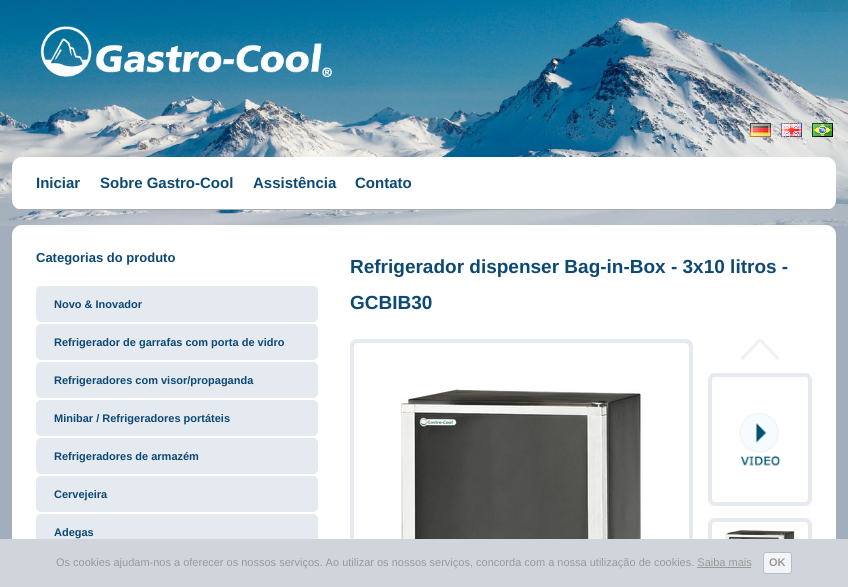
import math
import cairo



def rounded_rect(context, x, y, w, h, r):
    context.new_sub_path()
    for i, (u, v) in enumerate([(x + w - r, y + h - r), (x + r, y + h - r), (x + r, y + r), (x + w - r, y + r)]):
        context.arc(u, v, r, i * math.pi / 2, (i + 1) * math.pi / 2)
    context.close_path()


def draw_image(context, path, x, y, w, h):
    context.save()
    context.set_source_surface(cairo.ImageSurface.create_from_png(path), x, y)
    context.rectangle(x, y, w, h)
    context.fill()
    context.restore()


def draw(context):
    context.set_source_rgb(164 / 255, 173 / 255, 188 / 255)
    context.paint()
    draw_image(context, "images/1.png", 0, 0, 848, 226)
    context.set_source_rgba(0, 0, 0, 0.05)
    context.rectangle(791, 0, 57, 12)
    context.fill()
    draw_image(context, "images/2.png", 40, 26, 292, 51)
    draw_image(context, "images/3.png", 750, 123, 21, 14)
    draw_image(context, "images/4.png", 781, 123, 21, 14)
    draw_image(context, "images/5.png", 812, 123, 21, 14)
    context.set_source_rgb(1, 1, 1)
    rounded_rect(context, 12, 157, 824, 53, 10)
    context.fill()
    context.set_source_rgb(170 / 255, 170 / 255, 170 / 255)
    context.rectangle(17, 209, 814, 1)
    context.fill()
    context.set_source_rgb(1, 1, 1)
    rounded_rect(context, 12, 225, 824, 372, 10)
    context.fill()
    context.set_source_rgb(229 / 255, 233 / 255, 240 / 255)
    rounded_rect(context, 36, 286, 282, 36, 5)
    context.fill()
    rounded_rect(context, 36, 324, 282, 36, 5)
    context.fill()
    rounded_rect(context, 36, 362, 282, 36, 5)
    context.fill()
    rounded_rect(context, 36, 400, 282, 36, 5)
    context.fill()
    rounded_rect(context, 36, 438, 282, 36, 5)
    context.fill()
    rounded_rect(context, 36, 476, 282, 36, 5)
    context.fill()
    rounded_rect(context, 36, 514, 282, 36, 5)
    context.fill()
    rounded_rect(context, 350, 339, 343, 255, 7)
    context.fill()
    context.set_source_rgb(1, 1, 1)
    rounded_rect(context, 354, 343, 335, 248, 4)
    context.fill()
    draw_image(context, "images/6.png", 401, 388, 242, 151)
    draw_image(context, "images/7.png", 740, 339, 40, 21)
    rounded_rect(context, 710, 375, 100, 129, 5)
    context.set_source_rgb(229 / 255, 233 / 255, 240 / 255)
    context.set_line_width(4)
    context.stroke()
    draw_image(context, "images/8.png", 739, 413, 42, 53)
    rounded_rect(context, 710, 520, 100, 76, 5)
    context.stroke()
    draw_image(context, "images/9.png", 725, 529, 70, 10)
    context.set_source_rgb(208 / 255, 213 / 255, 220 / 255)
    context.rectangle(0, 539, 848, 48)
    context.fill()
    context.set_source_rgb(242 / 255, 244 / 255, 248 / 255)
    rounded_rect(context, 763.5, 552.5, 28, 21, 2.5)
    context.fill_preserve()
    context.set_source_rgb(184 / 255, 189 / 255, 195 / 255)
    context.set_line_width(1)
    context.stroke()
    context.set_source_rgb(153 / 255, 153 / 255, 153 / 255)
    context.rectangle(697, 567, 54, 1)
    context.fill()
    context.select_font_face("Liberation Sans", cairo.FontSlant.NORMAL, cairo.FontWeight.BOLD)
    context.set_font_size(15)
    context.set_source_rgb(12 / 255, 73 / 255, 117 / 255)
    context.move_to(36, 188)
    context.show_text("Iniciar")
    context.move_to(100, 188)
    context.show_text("Sobre Gastro-Cool")
    context.move_to(253, 188)
    context.show_text("Assistência")
    context.move_to(355, 188)
    context.show_text("Contato")
    context.set_font_size(13)
    context.move_to(36, 262)
    context.show_text("Categorias do produto")
    context.set_font_size(11)
    context.move_to(54, 308)
    context.show_text("Novo & Inovador")
    context.move_to(54, 346)
    context.show_text("Refrigerador de garrafas com porta de vidro")
    context.move_to(54, 384)
    context.show_text("Refrigeradores com visor/propaganda")
    context.move_to(54, 422)
    context.show_text("Minibar / Refrigeradores portáteis")
    context.move_to(54, 460)
    context.show_text("Refrigeradores de armazém")
    context.move_to(54, 498)
    context.show_text("Cervejeira")
    context.move_to(54, 536)
    context.show_text("Adegas")
    context.set_font_size(19)
    context.move_to(350, 273)
    context.show_text("Refrigerador dispenser Bag-in-Box - 3x10 litros -")
    context.move_to(350, 309)
    context.show_text("GCBIB30")
    context.select_font_face("Liberation Sans")
    context.set_font_size(11)
    context.set_source_rgb(153 / 255, 153 / 255, 153 / 255)
    context.move_to(56, 566)
    context.show_text("Os cookies ajudam-nos a oferecer os nossos serviços. Ao utilizar os nossos serviços, concorda com a nossa utilização de cookies. Saiba mais")
    context.select_font_face("Liberation Sans", cairo.FontSlant.NORMAL, cairo.FontWeight.BOLD)
    context.move_to(769, 566)
    context.show_text("OK")


surface = cairo.ImageSurface(cairo.Format.RGB24, 848, 587)
context = cairo.Context(surface)
options = cairo.FontOptions()
options.set_hint_metrics(cairo.HintMetrics.OFF)
options.set_hint_style(cairo.HintStyle.NONE)
context.set_font_options(options)
context.set_miter_limit(4)
draw(context)
surface.write_to_png("out.png")
